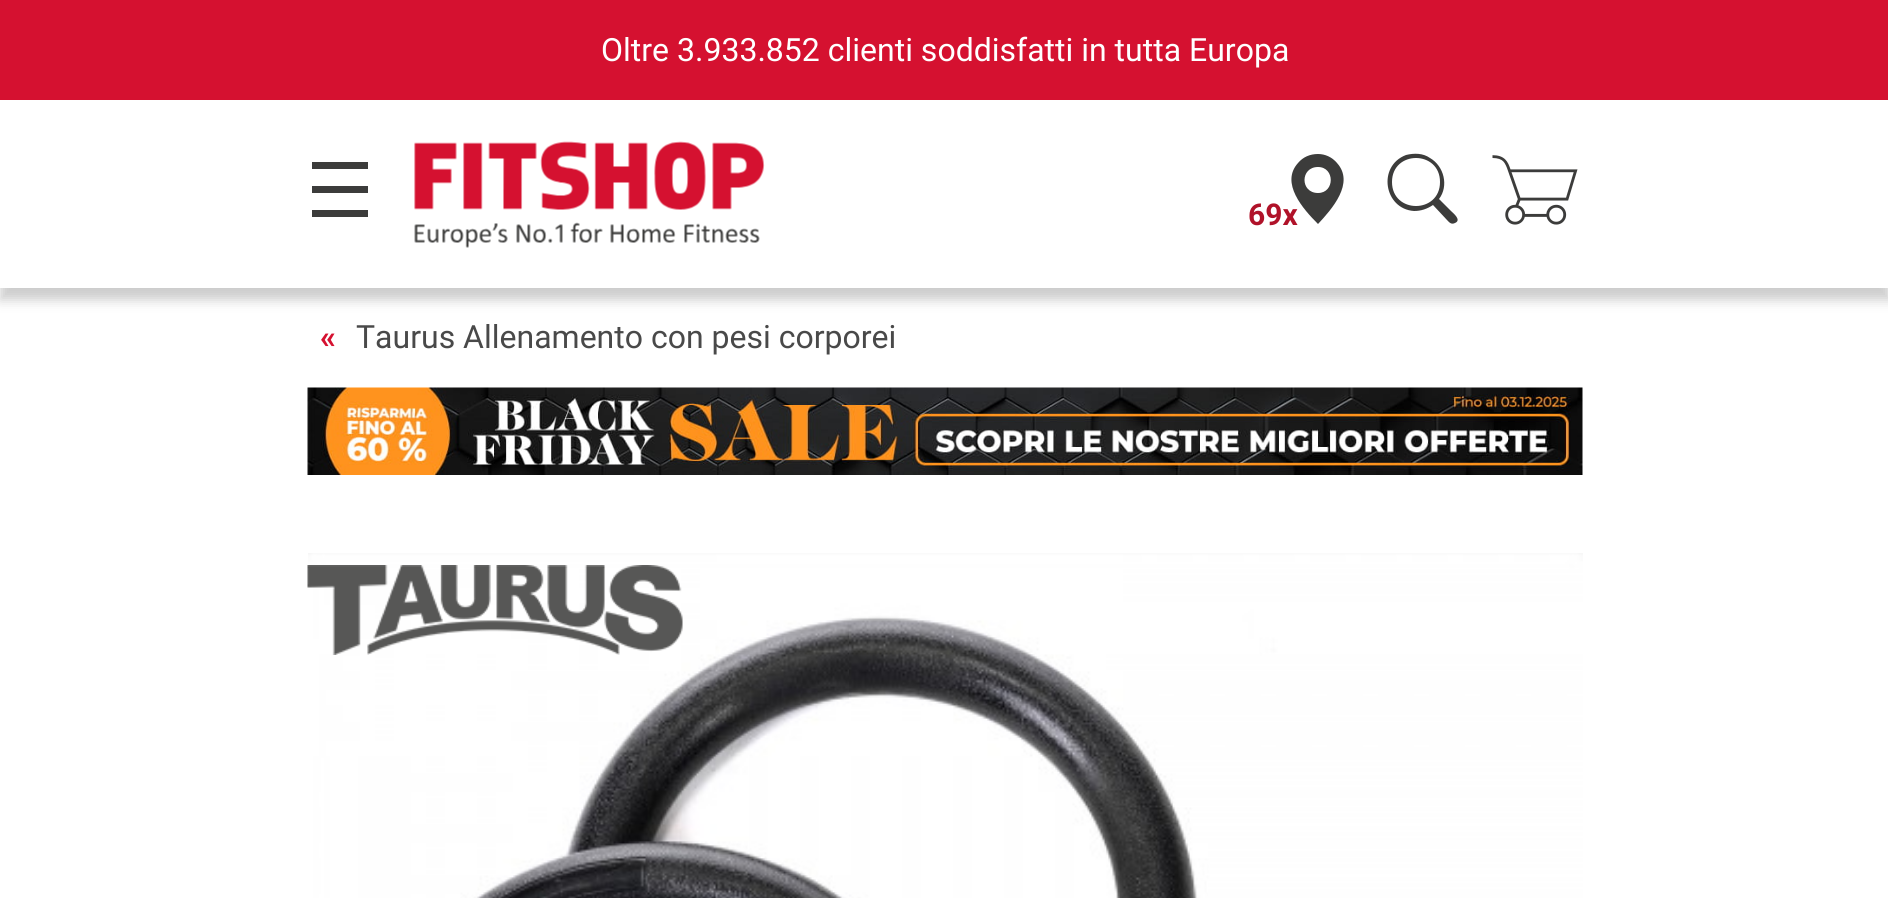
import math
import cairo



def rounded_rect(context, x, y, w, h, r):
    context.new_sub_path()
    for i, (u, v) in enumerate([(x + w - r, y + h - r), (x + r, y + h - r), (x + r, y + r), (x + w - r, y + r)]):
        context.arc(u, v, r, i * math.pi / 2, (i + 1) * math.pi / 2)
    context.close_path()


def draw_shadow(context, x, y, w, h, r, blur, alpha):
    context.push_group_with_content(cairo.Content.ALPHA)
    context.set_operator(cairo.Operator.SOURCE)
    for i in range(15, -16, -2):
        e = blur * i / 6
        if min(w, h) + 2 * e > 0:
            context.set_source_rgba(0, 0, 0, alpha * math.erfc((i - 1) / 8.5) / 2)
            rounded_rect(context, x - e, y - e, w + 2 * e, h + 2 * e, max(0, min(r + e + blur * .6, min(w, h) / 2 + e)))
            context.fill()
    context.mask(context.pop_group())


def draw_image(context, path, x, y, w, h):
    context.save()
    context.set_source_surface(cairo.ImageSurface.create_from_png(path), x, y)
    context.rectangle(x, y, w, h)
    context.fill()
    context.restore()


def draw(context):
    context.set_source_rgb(1, 1, 1)
    context.paint()
    context.set_source_rgb(0, 0, 0)
    draw_shadow(context, 0, 13, 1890, 287, 0, 6, 0.2)
    context.set_source_rgb(1, 1, 1)
    context.rectangle(0, 100, 1888, 188)
    context.fill()
    context.set_source_rgb(213 / 255, 17 / 255, 48 / 255)
    context.rectangle(0, 0, 1888, 100)
    context.fill()
    context.set_source_rgb(60 / 255, 60 / 255, 59 / 255)
    context.new_path()
    context.move_to(312, 162)
    context.line_to(312, 169)
    context.line_to(368, 169)
    context.line_to(368, 162)
    context.close_path()
    context.move_to(312, 186)
    context.line_to(312, 193)
    context.line_to(368, 193)
    context.line_to(368, 186)
    context.close_path()
    context.move_to(312, 210)
    context.line_to(312, 217)
    context.line_to(368, 217)
    context.line_to(368, 210)
    context.close_path()
    context.fill()
    draw_image(context, "images/1.png", 414, 141, 351, 107)
    context.new_path()
    context.move_to(1318, 224)
    context.curve_to(1332, 209, 1355, 183, 1337, 163)
    context.curve_to(1332, 157, 1325, 154, 1318, 154)
    context.curve_to(1310, 154, 1303, 157, 1298, 163)
    context.curve_to(1280, 183, 1303, 209, 1318, 224)
    context.close_path()
    context.move_to(1318, 193)
    context.curve_to(1300, 193, 1300, 167, 1318, 167)
    context.curve_to(1335, 167, 1335, 193, 1318, 193)
    context.close_path()
    context.fill()
    context.new_path()
    context.move_to(1439, 199)
    context.curve_to(1449, 186, 1444, 166, 1430, 158)
    context.curve_to(1423, 153, 1414, 153, 1406, 155)
    context.curve_to(1377, 166, 1384, 209, 1414, 211)
    context.curve_to(1421, 211, 1427, 209, 1433, 205)
    context.line_to(1447, 220)
    context.curve_to(1449, 222, 1451, 225, 1455, 223)
    context.curve_to(1462, 220, 1453, 213, 1451, 211)
    context.close_path()
    context.move_to(1440, 182)
    context.curve_to(1440, 214, 1392, 214, 1392, 182)
    context.curve_to(1392, 150, 1440, 150, 1440, 182)
    context.close_path()
    context.fill()
    draw_image(context, "images/2.png", 1492, 155, 86, 70)
    draw_image(context, "images/3.png", 307, 387, 1276, 88)
    draw_image(context, "images/4.png", 308, 553, 1275, 345)
    draw_image(context, "images/5.png", 307, 565, 376, 90)
    context.select_font_face("Roboto")
    context.set_font_size(32)
    context.set_source_rgb(1, 1, 1)
    context.move_to(601, 61)
    context.show_text("Oltre 3.933.852 clienti soddisfatti in tutta Europa")
    context.select_font_face("Roboto", cairo.FontSlant.NORMAL, cairo.FontWeight.BOLD)
    context.set_font_size(30)
    context.set_source_rgb(176 / 255, 18 / 255, 41 / 255)
    context.move_to(1248, 225)
    context.show_text("69x")
    context.set_font_size(32)
    context.set_source_rgb(213 / 255, 17 / 255, 48 / 255)
    context.move_to(320, 348)
    context.show_text("«")
    context.select_font_face("Roboto")
    context.set_source_rgb(73 / 255, 73 / 255, 73 / 255)
    context.move_to(356, 348)
    context.show_text("Taurus Allenamento con pesi corporei")


surface = cairo.ImageSurface(cairo.Format.RGB24, 1888, 898)
context = cairo.Context(surface)
options = cairo.FontOptions()
options.set_hint_metrics(cairo.HintMetrics.OFF)
options.set_hint_style(cairo.HintStyle.NONE)
context.set_font_options(options)
context.set_miter_limit(4)
draw(context)
surface.write_to_png("out.png")
